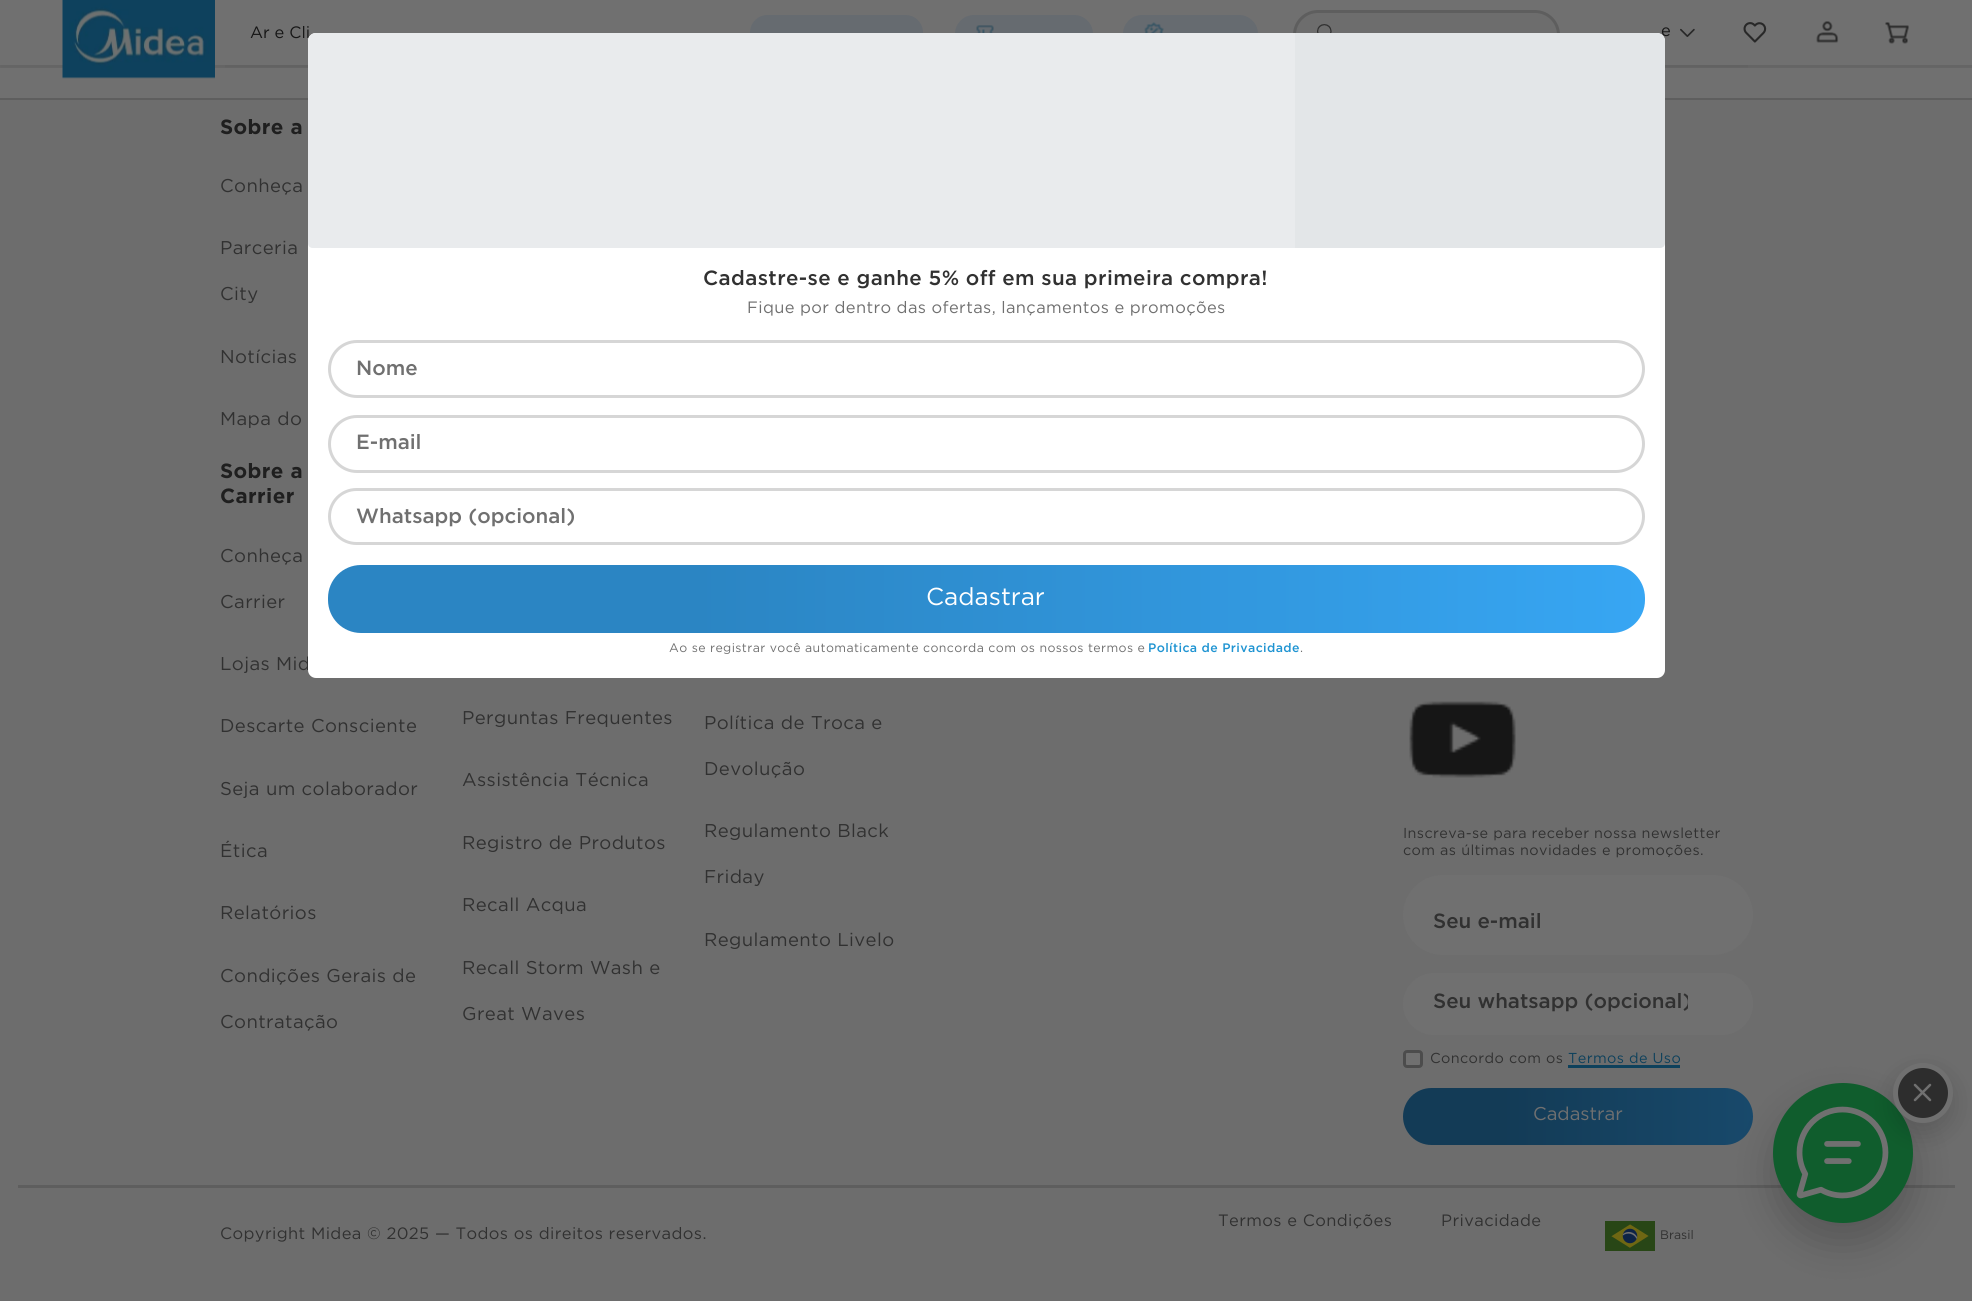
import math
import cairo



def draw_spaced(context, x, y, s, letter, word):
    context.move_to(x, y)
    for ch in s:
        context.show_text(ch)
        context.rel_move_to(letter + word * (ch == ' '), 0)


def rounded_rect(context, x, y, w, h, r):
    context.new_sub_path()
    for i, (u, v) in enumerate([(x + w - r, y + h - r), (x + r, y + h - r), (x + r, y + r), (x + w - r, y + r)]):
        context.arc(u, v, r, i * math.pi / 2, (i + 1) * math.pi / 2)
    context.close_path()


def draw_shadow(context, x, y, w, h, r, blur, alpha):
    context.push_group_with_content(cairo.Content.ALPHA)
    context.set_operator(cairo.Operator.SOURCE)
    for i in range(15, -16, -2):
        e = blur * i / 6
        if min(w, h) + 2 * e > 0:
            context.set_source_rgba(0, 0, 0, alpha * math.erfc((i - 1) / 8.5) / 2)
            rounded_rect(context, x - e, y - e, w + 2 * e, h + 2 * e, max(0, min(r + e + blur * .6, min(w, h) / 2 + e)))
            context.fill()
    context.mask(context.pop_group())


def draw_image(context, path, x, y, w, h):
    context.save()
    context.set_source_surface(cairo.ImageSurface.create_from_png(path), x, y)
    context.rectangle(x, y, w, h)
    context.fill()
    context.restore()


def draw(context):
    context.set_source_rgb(112 / 255, 112 / 255, 112 / 255)
    context.paint()
    context.set_source_rgb(109 / 255, 109 / 255, 109 / 255)
    context.rectangle(225, 65, 1523, 3)
    context.fill()
    context.save()
    context.rectangle(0, 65, 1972, 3)
    context.clip()
    context.set_source_rgb(0, 0, 0)
    draw_shadow(context, 0, 3, 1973, 65, 0, 0.5, 0.1)
    context.restore()
    draw_image(context, "images/1.png", 62, 0, 153, 79)
    context.set_source_rgb(102 / 255, 107 / 255, 112 / 255)
    rounded_rect(context, 750, 15, 173, 35, 17.5)
    context.fill()
    rounded_rect(context, 955, 15, 138, 38, 19)
    context.fill()
    draw_image(context, "images/2.png", 976, 25, 18, 8)
    rounded_rect(context, 1123, 15, 135, 38, 19)
    context.fill()
    draw_image(context, "images/3.png", 1144, 22, 20, 11)
    context.set_source_rgb(109 / 255, 109 / 255, 109 / 255)
    rounded_rect(context, 1294.5, 11.5, 264, 47, 23.5)
    context.fill_preserve()
    context.set_source_rgb(94 / 255, 94 / 255, 94 / 255)
    context.set_line_width(3)
    context.stroke()
    draw_image(context, "images/4.png", 1317, 24, 15, 9)
    draw_image(context, "images/5.png", 1680, 28, 15, 9)
    draw_image(context, "images/6.png", 1743, 22, 24, 21)
    draw_image(context, "images/7.png", 1816, 21, 23, 22)
    draw_image(context, "images/8.png", 1885, 22, 24, 22)
    context.rectangle(0, 98, 1972, 2)
    context.fill()
    context.set_source_rgb(109 / 255, 109 / 255, 109 / 255)
    context.rectangle(0, 100, 1972, 1201)
    context.fill()
    draw_image(context, "images/9.png", 1409, 701, 107, 77)
    context.set_source_rgb(112 / 255, 112 / 255, 112 / 255)
    rounded_rect(context, 1403, 875, 350, 80, 40)
    context.fill()
    rounded_rect(context, 1403, 973, 350, 62, 31)
    context.fill()
    rounded_rect(context, 1404.5, 1051.5, 17, 15, 2.5)
    context.fill_preserve()
    context.set_source_rgb(76 / 255, 76 / 255, 76 / 255)
    context.stroke()
    context.set_source_rgb(14 / 255, 65 / 255, 92 / 255)
    context.rectangle(1568, 1065, 112, 3)
    context.fill()
    gradient = cairo.LinearGradient(1403, 1116, 1753, 1116)
    gradient.add_color_stop_rgba(0.28, 19 / 255, 59 / 255, 86 / 255, 1)
    gradient.add_color_stop_rgba(1, 24 / 255, 73 / 255, 107 / 255, 1)
    context.set_source(gradient)
    rounded_rect(context, 1403, 1088, 350, 57, 28.5)
    context.fill()
    context.set_source_rgb(94 / 255, 94 / 255, 94 / 255)
    context.rectangle(18, 1185, 1937, 3)
    context.fill()
    draw_image(context, "images/10.png", 1605, 1221, 50, 30)
    context.set_source_rgb(0, 0, 0)
    draw_shadow(context, 1773, 1103, 140, 140, 70, 20, 0.2)
    context.set_source_rgb(16 / 255, 93 / 255, 45 / 255)
    context.arc(1843, 1153, 70, 0, 2 * math.pi)
    context.fill()
    draw_image(context, "images/11.png", 1796, 1106, 93, 93)
    context.set_source_rgb(0, 0, 0)
    draw_shadow(context, 1893, 1073, 60, 60, 30, 12.5, 0.15)
    context.set_source_rgb(45 / 255, 45 / 255, 45 / 255)
    context.arc(1923, 1093, 27.5, 0, 2 * math.pi)
    context.fill_preserve()
    context.set_source_rgb(112 / 255, 112 / 255, 112 / 255)
    context.set_line_width(5)
    context.stroke()
    context.new_path()
    context.move_to(1930, 1085)
    context.line_to(1915, 1100)
    context.move_to(1915, 1085)
    context.line_to(1930, 1100)
    context.set_line_width(2.5)
    context.set_line_cap(cairo.LineCap.ROUND)
    context.set_line_join(cairo.LineJoin.ROUND)
    context.stroke()
    context.select_font_face("Gotham")
    context.set_font_size(16.45)
    context.set_source_rgb(22 / 255, 22 / 255, 22 / 255)
    context.move_to(250, 38)
    context.show_text("Ar e Cli")
    context.move_to(1661, 36)
    context.show_text("e")
    context.select_font_face("Gotham", cairo.FontSlant.NORMAL, cairo.FontWeight.BOLD)
    context.set_font_size(20.55)
    context.set_source_rgb(31 / 255, 31 / 255, 31 / 255)
    draw_spaced(context, 220, 134, "Sobre a", 0.4, 0)
    context.select_font_face("Gotham")
    context.set_font_size(18.5)
    context.set_source_rgb(49 / 255, 49 / 255, 49 / 255)
    draw_spaced(context, 220, 192, "Conheça", 0.4, 0)
    draw_spaced(context, 220, 254, "Parceria", 0.4, 0)
    draw_spaced(context, 220, 300, "City", 0.4, 0)
    draw_spaced(context, 220, 363, "Notícias", 0.4, 0)
    draw_spaced(context, 220, 425, "Mapa do", 0.4, 0)
    context.select_font_face("Gotham", cairo.FontSlant.NORMAL, cairo.FontWeight.BOLD)
    context.set_font_size(20.55)
    context.set_source_rgb(31 / 255, 31 / 255, 31 / 255)
    draw_spaced(context, 220, 478, "Sobre a", 0.4, 0)
    draw_spaced(context, 220, 503, "Carrier", 0.4, 0)
    context.select_font_face("Gotham")
    context.set_font_size(18.5)
    context.set_source_rgb(49 / 255, 49 / 255, 49 / 255)
    draw_spaced(context, 220, 562, "Conheça", 0.4, 0)
    draw_spaced(context, 220, 608, "Carrier", 0.4, 0)
    draw_spaced(context, 220, 670, "Lojas Mid", 0.4, 0)
    draw_spaced(context, 220, 732, "Descarte Consciente", 0.4, 0)
    draw_spaced(context, 220, 795, "Seja um colaborador", 0.4, 0)
    draw_spaced(context, 220, 857, "Ética", 0.4, 0)
    draw_spaced(context, 220, 919, "Relatórios", 0.4, 0)
    draw_spaced(context, 220, 982, "Condições Gerais de", 0.4, 0)
    draw_spaced(context, 220, 1028, "Contratação", 0.4, 0)
    draw_spaced(context, 462, 724, "Perguntas Frequentes", 0.4, 0)
    draw_spaced(context, 462, 786, "Assistência Técnica", 0.4, 0)
    draw_spaced(context, 462, 849, "Registro de Produtos", 0.4, 0)
    draw_spaced(context, 462, 911, "Recall Acqua", 0.4, 0)
    draw_spaced(context, 462, 974, "Recall Storm Wash e", 0.4, 0)
    draw_spaced(context, 462, 1020, "Great Waves", 0.4, 0)
    draw_spaced(context, 704, 729, "Política de Troca e", 0.4, 0)
    draw_spaced(context, 704, 775, "Devolução", 0.4, 0)
    draw_spaced(context, 704, 837, "Regulamento Black", 0.4, 0)
    draw_spaced(context, 704, 883, "Friday", 0.4, 0)
    draw_spaced(context, 704, 946, "Regulamento Livelo", 0.4, 0)
    context.set_font_size(14.4)
    draw_spaced(context, 1403, 838, "Inscreva-se para receber nossa newsletter", 0.4, 0)
    draw_spaced(context, 1403, 855, "com as últimas novidades e promoções.", 0.4, 0)
    context.select_font_face("Gotham Medium")
    context.set_font_size(20.55)
    context.move_to(1433, 928)
    context.show_text("Seu e-mail")
    context.save()
    context.rectangle(1433, 988, 255, 27)
    context.clip()
    context.move_to(1433, 1008)
    context.show_text("Seu whatsapp (opcional)")
    context.restore()
    context.select_font_face("Gotham")
    context.set_font_size(14.4)
    draw_spaced(context, 1430, 1063, "Concordo com os", 0.4, 0)
    context.set_source_rgb(14 / 255, 65 / 255, 92 / 255)
    draw_spaced(context, 1568, 1063, "Termos de Uso", 0.4, 0)
    context.set_font_size(18.5)
    context.set_source_rgb(112 / 255, 112 / 255, 112 / 255)
    context.move_to(1533, 1120)
    context.show_text("Cadastrar")
    context.set_font_size(16.45)
    context.set_source_rgb(49 / 255, 49 / 255, 49 / 255)
    draw_spaced(context, 220, 1239, "Copyright Midea © 2025 — Todos os direitos reservados.", 0.4, 0)
    draw_spaced(context, 1218, 1226, "Termos e Condições", 0.4, 0)
    draw_spaced(context, 1441, 1226, "Privacidade", 0.4, 0)
    context.set_font_size(12.35)
    context.move_to(1660, 1239)
    context.show_text("Brasil")
    context.set_source_rgb(1, 1, 1)
    rounded_rect(context, 308, 33, 1357, 645, 8)
    context.fill()
    context.set_source_rgb(227 / 255, 230 / 255, 232 / 255)
    context.new_path()
    context.move_to(316, 33)
    context.line_to(1657, 33)
    context.curve_to(1661.5, 33, 1665, 36.5, 1665, 41)
    context.line_to(1665, 243)
    context.curve_to(1665, 246, 1663, 248, 1660, 248)
    context.line_to(313, 248)
    context.curve_to(310, 248, 308, 246, 308, 243)
    context.line_to(308, 41)
    context.curve_to(308, 36.5, 311.5, 33, 316, 33)
    context.close_path()
    context.fill()
    context.set_source_rgba(1, 1, 1, 0.2)
    context.new_path()
    context.move_to(316, 33)
    context.line_to(1295, 33)
    context.line_to(1295, 248)
    context.line_to(313, 248)
    context.curve_to(310, 248, 308, 246, 308, 243)
    context.line_to(308, 41)
    context.curve_to(308, 36.5, 311.5, 33, 316, 33)
    context.close_path()
    context.fill()
    context.select_font_face("Gotham Medium")
    context.set_font_size(20.55)
    context.set_source_rgb(49 / 255, 49 / 255, 49 / 255)
    draw_spaced(context, 703, 285, "Cadastre-se e ganhe 5% off em sua primeira compra!", 0.4, -0.25)
    context.select_font_face("Gotham")
    context.set_font_size(16.45)
    context.set_source_rgb(112 / 255, 112 / 255, 112 / 255)
    draw_spaced(context, 747, 313, "Fique por dentro das ofertas, lançamentos e promoções", 0.4, -0.25)
    rounded_rect(context, 329.5, 341.5, 1314, 55, 27.5)
    context.set_source_rgb(214 / 255, 214 / 255, 214 / 255)
    context.set_line_width(3)
    context.set_line_cap(cairo.LineCap.BUTT)
    context.set_line_join(cairo.LineJoin.MITER)
    context.stroke()
    context.select_font_face("Gotham Medium")
    context.set_font_size(20.55)
    context.set_source_rgb(112 / 255, 112 / 255, 112 / 255)
    context.move_to(356, 375)
    context.show_text("Nome")
    rounded_rect(context, 329.5, 416.5, 1314, 55, 27.5)
    context.set_source_rgb(214 / 255, 214 / 255, 214 / 255)
    context.stroke()
    context.set_source_rgb(112 / 255, 112 / 255, 112 / 255)
    context.move_to(356, 449)
    context.show_text("E-mail")
    rounded_rect(context, 329.5, 489.5, 1314, 54, 27)
    context.set_source_rgb(214 / 255, 214 / 255, 214 / 255)
    context.stroke()
    context.set_source_rgb(112 / 255, 112 / 255, 112 / 255)
    context.move_to(356, 523)
    context.show_text("Whatsapp (opcional)")
    gradient = cairo.LinearGradient(328, 599, 1645, 599)
    gradient.add_color_stop_rgba(0.28, 43 / 255, 133 / 255, 195 / 255, 1)
    gradient.add_color_stop_rgba(1, 55 / 255, 166 / 255, 243 / 255, 1)
    context.set_source(gradient)
    rounded_rect(context, 328, 565, 1317, 68, 33)
    context.fill()
    context.select_font_face("Gotham")
    context.set_font_size(24.5)
    context.set_source_rgb(1, 1, 1)
    context.move_to(926, 605)
    context.show_text("Cadastrar")
    context.set_font_size(12.35)
    context.set_source_rgb(112 / 255, 112 / 255, 112 / 255)
    draw_spaced(context, 669, 652, "Ao se registrar você automaticamente concorda com os nossos termos e", 0.4, 0)
    context.select_font_face("Gotham Medium")
    context.set_source_rgb(31 / 255, 148 / 255, 210 / 255)
    draw_spaced(context, 1148, 652, "Política de Privacidade", 0.4, 0)
    context.select_font_face("Gotham")
    context.set_source_rgb(112 / 255, 112 / 255, 112 / 255)
    draw_spaced(context, 1300, 652, ".", 0.4, 0)


surface = cairo.ImageSurface(cairo.Format.RGB24, 1972, 1301)
context = cairo.Context(surface)
options = cairo.FontOptions()
options.set_hint_metrics(cairo.HintMetrics.OFF)
options.set_hint_style(cairo.HintStyle.NONE)
context.set_font_options(options)
context.set_miter_limit(4)
draw(context)
surface.write_to_png("out.png")
